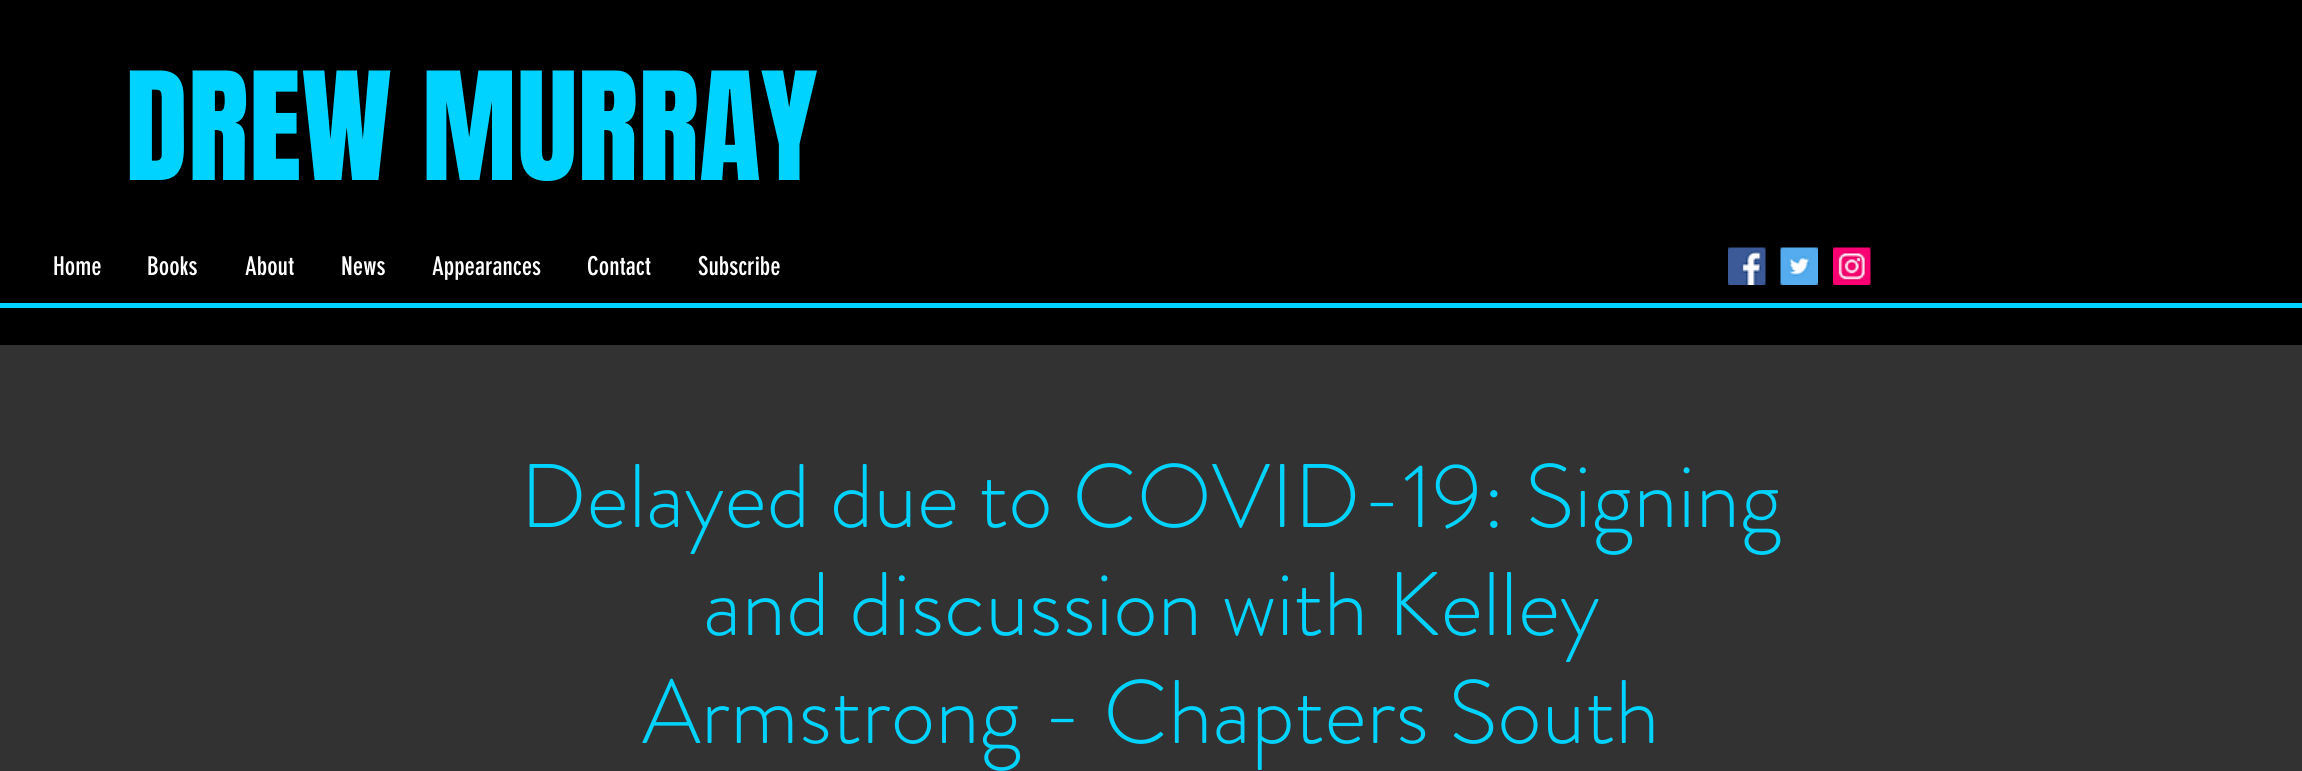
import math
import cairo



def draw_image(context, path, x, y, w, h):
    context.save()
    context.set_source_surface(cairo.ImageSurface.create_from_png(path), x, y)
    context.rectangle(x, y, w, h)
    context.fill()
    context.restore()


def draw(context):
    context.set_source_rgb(50 / 255, 50 / 255, 50 / 255)
    context.paint()
    context.set_source_rgb(0, 0, 0)
    context.rectangle(0, 0, 2302, 345)
    context.fill()
    draw_image(context, "images/1.png", 1728, 247, 38, 38)
    draw_image(context, "images/2.png", 1780, 247, 38, 38)
    draw_image(context, "images/3.png", 1833, 247, 38, 38)
    context.set_source_rgb(0, 211 / 255, 1)
    context.rectangle(0, 303, 2302, 5)
    context.fill()
    context.select_font_face("Anton")
    context.set_font_size(127.5)
    context.move_to(125, 180)
    context.show_text("DREW MURRAY")
    context.select_font_face("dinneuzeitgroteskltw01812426")
    context.set_font_size(25.5)
    context.set_source_rgb(1, 1, 1)
    context.move_to(53, 275)
    context.show_text("Home")
    context.move_to(147, 275)
    context.show_text("Books")
    context.move_to(245, 275)
    context.show_text("About")
    context.move_to(341, 275)
    context.show_text("News")
    context.move_to(432, 275)
    context.show_text("Appearances")
    context.move_to(587, 275)
    context.show_text("Contact")
    context.move_to(698, 275)
    context.show_text("Subscribe")
    context.select_font_face("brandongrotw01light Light")
    context.set_font_size(90)
    context.set_source_rgb(0, 211 / 255, 1)
    context.move_to(520, 527)
    context.show_text("Delayed due to COVID-19: Signing")
    context.move_to(703, 635)
    context.show_text("and discussion with Kelley")
    context.move_to(642, 743)
    context.show_text("Armstrong - Chapters South")


surface = cairo.ImageSurface(cairo.Format.RGB24, 2302, 771)
context = cairo.Context(surface)
options = cairo.FontOptions()
options.set_hint_metrics(cairo.HintMetrics.OFF)
options.set_hint_style(cairo.HintStyle.NONE)
context.set_font_options(options)
context.set_miter_limit(4)
draw(context)
surface.write_to_png("out.png")
